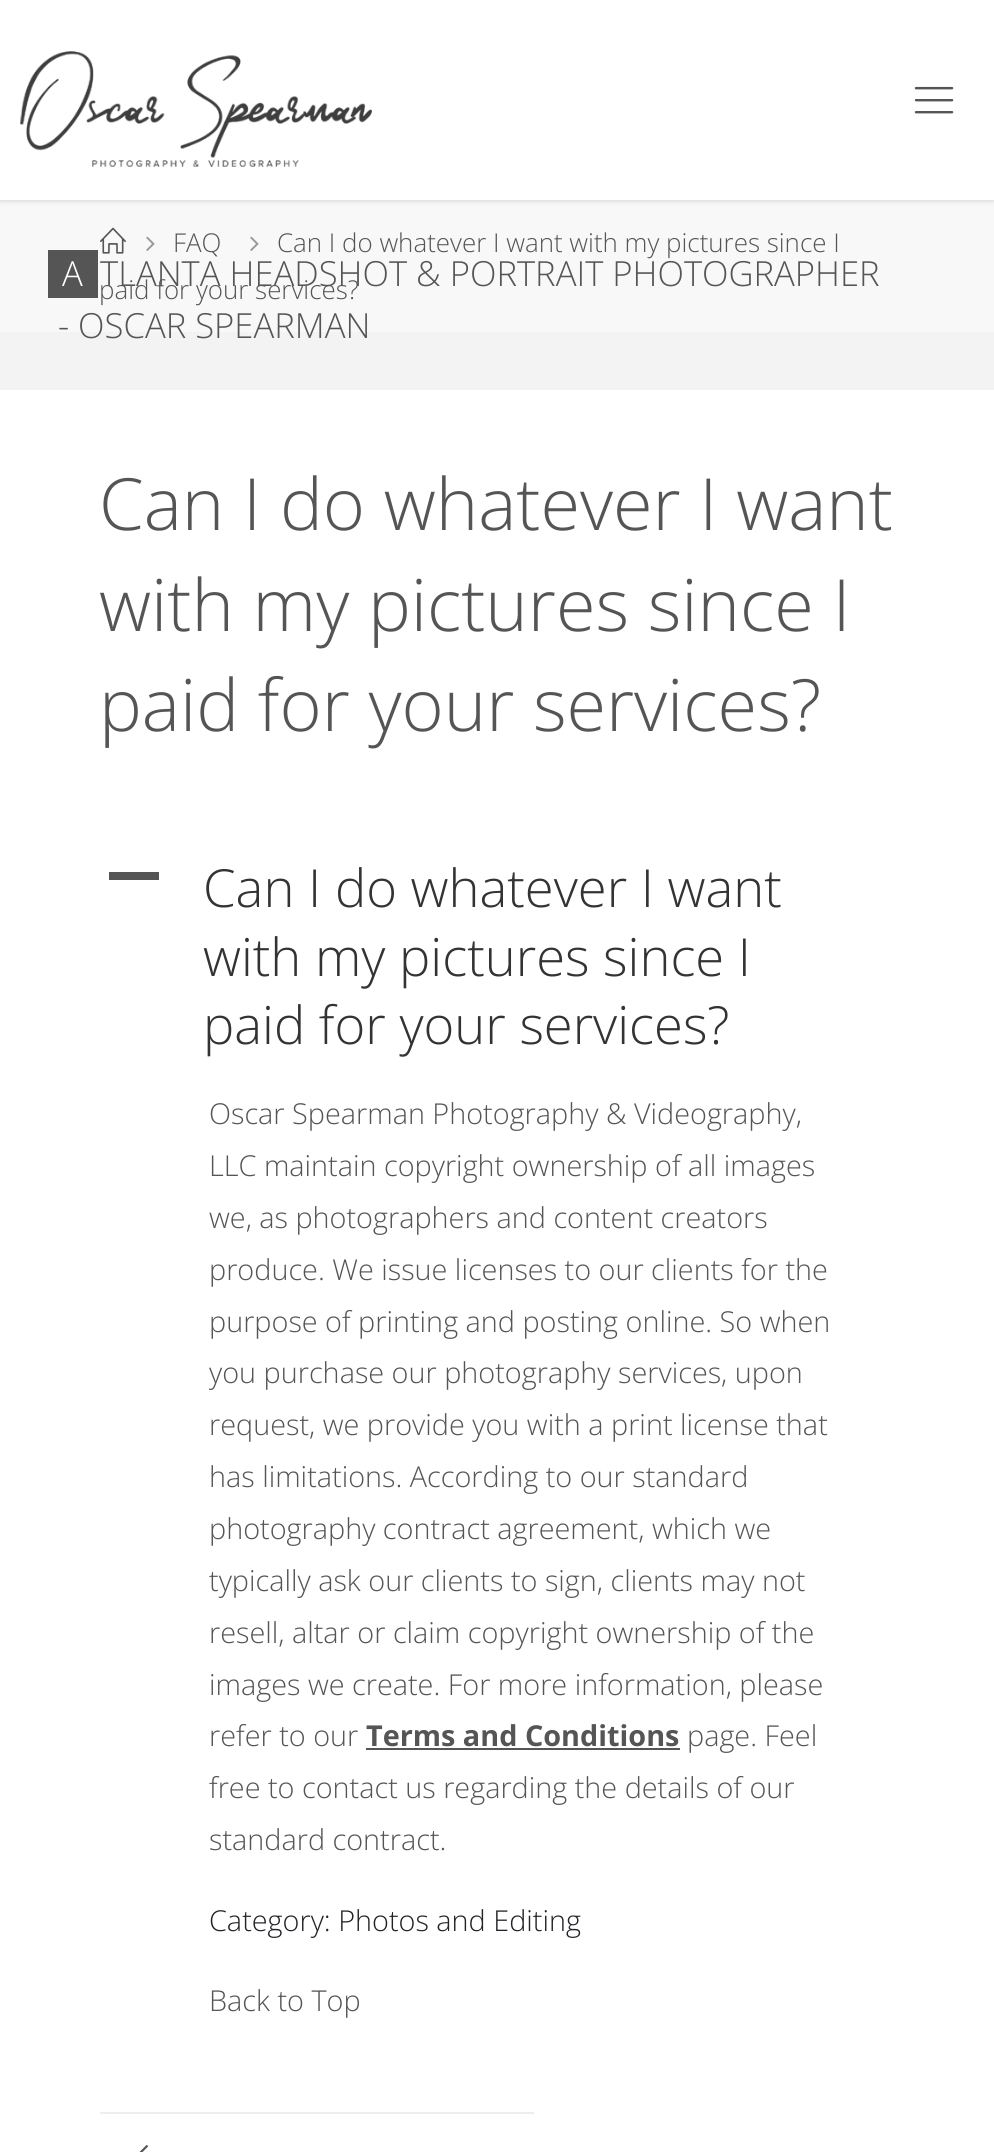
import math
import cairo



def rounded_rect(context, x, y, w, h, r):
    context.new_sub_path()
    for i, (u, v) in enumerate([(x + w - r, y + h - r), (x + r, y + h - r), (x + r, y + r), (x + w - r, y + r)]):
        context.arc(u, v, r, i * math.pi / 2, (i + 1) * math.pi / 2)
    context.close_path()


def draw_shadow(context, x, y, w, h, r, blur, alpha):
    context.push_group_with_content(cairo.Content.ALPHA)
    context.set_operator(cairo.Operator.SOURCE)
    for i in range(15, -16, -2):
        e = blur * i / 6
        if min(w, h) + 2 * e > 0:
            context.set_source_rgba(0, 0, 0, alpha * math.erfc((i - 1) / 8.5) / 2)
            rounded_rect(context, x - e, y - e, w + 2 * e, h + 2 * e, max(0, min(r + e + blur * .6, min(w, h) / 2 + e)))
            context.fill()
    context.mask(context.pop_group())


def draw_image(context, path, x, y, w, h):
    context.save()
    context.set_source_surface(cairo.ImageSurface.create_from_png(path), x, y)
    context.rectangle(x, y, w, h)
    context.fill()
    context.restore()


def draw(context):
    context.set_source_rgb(243 / 255, 243 / 255, 243 / 255)
    context.paint()
    context.set_source_rgb(248 / 255, 248 / 255, 248 / 255)
    context.rectangle(0, 200, 994, 132)
    context.fill()
    draw_image(context, "images/1.png", 100, 227, 26, 27)
    draw_image(context, "images/2.png", 146, 236, 9, 15)
    draw_image(context, "images/2.png", 250, 236, 9, 15)
    context.set_source_rgb(0, 0, 0)
    draw_shadow(context, 0, 0, 994, 200, 0, 3, 0.2)
    context.set_source_rgb(1, 1, 1)
    context.rectangle(0, 0, 994, 200)
    context.fill()
    draw_image(context, "images/3.png", 914, 86, 40, 28)
    draw_image(context, "images/4.png", 20, 51, 352, 116)
    context.set_source_rgb(85 / 255, 85 / 255, 85 / 255)
    context.rectangle(48, 250, 50, 48)
    context.fill()
    context.set_source_rgb(1, 1, 1)
    context.rectangle(0, 390, 994, 1762)
    context.fill()
    context.set_source_rgb(85 / 255, 85 / 255, 85 / 255)
    context.rectangle(109, 872, 50, 8)
    context.fill()
    context.rectangle(366, 1748, 314, 2)
    context.fill()
    context.set_source_rgb(238 / 255, 238 / 255, 238 / 255)
    context.rectangle(100, 2112, 434, 2)
    context.fill()
    draw_image(context, "images/5.png", 139, 2145, 9, 7)
    context.select_font_face("Open Sans Light")
    context.set_font_size(25.9)
    context.set_source_rgb(85 / 255, 85 / 255, 85 / 255)
    context.move_to(173, 252)
    context.show_text("FAQ")
    context.move_to(277, 252)
    context.show_text("Can I do whatever I want with my pictures since I")
    context.move_to(99, 299)
    context.show_text("paid for your services?")
    context.set_font_size(34.6)
    context.set_source_rgb(1, 1, 1)
    context.move_to(62, 286)
    context.show_text("A")
    context.set_source_rgb(85 / 255, 85 / 255, 85 / 255)
    context.move_to(100, 286)
    context.show_text("TLANTA HEADSHOT & PORTRAIT PHOTOGRAPHER")
    context.move_to(58, 338)
    context.show_text("- OSCAR SPEARMAN")
    context.set_font_size(72)
    context.move_to(99, 530)
    context.show_text("Can I do whatever I want")
    context.move_to(99, 631)
    context.show_text("with my pictures since I")
    context.move_to(99, 731)
    context.show_text("paid for your services?")
    context.set_font_size(52.5)
    context.set_source_rgb(51 / 255, 51 / 255, 51 / 255)
    context.move_to(203, 907)
    context.show_text("Can I do whatever I want")
    context.move_to(203, 976)
    context.show_text("with my pictures since I")
    context.move_to(203, 1044)
    context.show_text("paid for your services?")
    context.set_font_size(28.8)
    context.set_source_rgb(85 / 255, 85 / 255, 85 / 255)
    context.move_to(209, 1124)
    context.show_text("Oscar Spearman Photography & Videography,")
    context.move_to(209, 1176)
    context.show_text("LLC maintain copyright ownership of all images")
    context.move_to(209, 1228)
    context.show_text("we, as photographers and content creators")
    context.move_to(209, 1280)
    context.show_text("produce. We issue licenses to our clients for the")
    context.move_to(209, 1332)
    context.show_text("purpose of printing and posting online. So when")
    context.move_to(209, 1383)
    context.show_text("you purchase our photography services, upon")
    context.move_to(209, 1435)
    context.show_text("request, we provide you with a print license that")
    context.move_to(209, 1487)
    context.show_text("has limitations. According to our standard")
    context.move_to(209, 1539)
    context.show_text("photography contract agreement, which we")
    context.move_to(209, 1591)
    context.show_text("typically ask our clients to sign, clients may not")
    context.move_to(209, 1643)
    context.show_text("resell, altar or claim copyright ownership of the")
    context.move_to(209, 1695)
    context.show_text("images we create. For more information, please")
    context.move_to(209, 1746)
    context.show_text("refer to our")
    context.select_font_face("Open Sans", cairo.FontSlant.NORMAL, cairo.FontWeight.BOLD)
    context.move_to(366, 1746)
    context.show_text("Terms and Conditions")
    context.select_font_face("Open Sans Light")
    context.move_to(687, 1746)
    context.show_text("page. Feel")
    context.move_to(209, 1798)
    context.show_text("free to contact us regarding the details of our")
    context.move_to(209, 1850)
    context.show_text("standard contract.")
    context.set_source_rgb(33 / 255, 36 / 255, 39 / 255)
    context.move_to(209, 1931)
    context.show_text("Category: Photos and Editing")
    context.set_source_rgb(85 / 255, 85 / 255, 85 / 255)
    context.move_to(209, 2011)
    context.show_text("Back to Top")


surface = cairo.ImageSurface(cairo.Format.RGB24, 994, 2152)
context = cairo.Context(surface)
options = cairo.FontOptions()
options.set_hint_metrics(cairo.HintMetrics.OFF)
options.set_hint_style(cairo.HintStyle.NONE)
context.set_font_options(options)
context.set_miter_limit(4)
draw(context)
surface.write_to_png("out.png")
